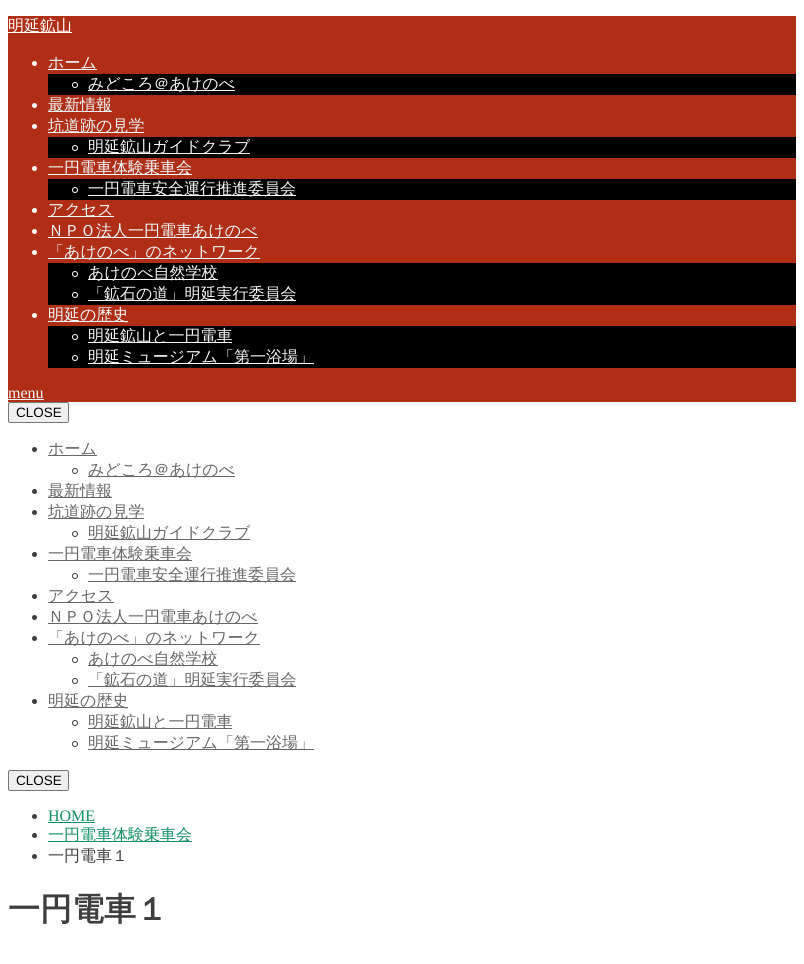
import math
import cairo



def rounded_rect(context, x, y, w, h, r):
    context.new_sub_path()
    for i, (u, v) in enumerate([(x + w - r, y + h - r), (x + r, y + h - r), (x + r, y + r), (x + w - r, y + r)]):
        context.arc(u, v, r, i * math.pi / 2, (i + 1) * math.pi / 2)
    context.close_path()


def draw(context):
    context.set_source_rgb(1, 1, 1)
    context.paint()
    context.set_source_rgb(175 / 255, 46 / 255, 21 / 255)
    context.rectangle(8, 16, 788, 386)
    context.fill()
    context.set_source_rgb(1, 1, 1)
    context.rectangle(8, 32, 64, 1)
    context.fill()
    context.arc(34.5, 63.5, 2.5, 0, 2 * math.pi)
    context.fill()
    context.set_source_rgb(237 / 255, 249 / 255, 252 / 255)
    context.rectangle(48, 69, 49, 1)
    context.fill()
    context.set_source_rgb(0, 0, 0)
    context.rectangle(48, 74, 748, 21)
    context.fill()
    context.arc(75, 85, 2.5, 0, 2 * math.pi)
    context.set_source_rgb(1, 1, 1)
    context.set_line_width(1)
    context.stroke()
    context.set_source_rgb(247 / 255, 247 / 255, 247 / 255)
    context.rectangle(88, 90, 147, 1)
    context.fill()
    context.set_source_rgb(1, 1, 1)
    context.arc(34.5, 105.5, 2.5, 0, 2 * math.pi)
    context.fill()
    context.set_source_rgb(237 / 255, 249 / 255, 252 / 255)
    context.rectangle(48, 111, 64, 1)
    context.fill()
    context.set_source_rgb(1, 1, 1)
    context.arc(34.5, 126.5, 2.5, 0, 2 * math.pi)
    context.fill()
    context.set_source_rgb(237 / 255, 249 / 255, 252 / 255)
    context.rectangle(48, 132, 96, 1)
    context.fill()
    context.set_source_rgb(0, 0, 0)
    context.rectangle(48, 137, 748, 21)
    context.fill()
    context.arc(75, 148, 2.5, 0, 2 * math.pi)
    context.set_source_rgb(1, 1, 1)
    context.stroke()
    context.set_source_rgb(247 / 255, 247 / 255, 247 / 255)
    context.rectangle(88, 153, 162, 1)
    context.fill()
    context.set_source_rgb(1, 1, 1)
    context.arc(34.5, 168.5, 2.5, 0, 2 * math.pi)
    context.fill()
    context.set_source_rgb(237 / 255, 249 / 255, 252 / 255)
    context.rectangle(48, 174, 144, 1)
    context.fill()
    context.set_source_rgb(0, 0, 0)
    context.rectangle(48, 179, 748, 21)
    context.fill()
    context.arc(75, 190, 2.5, 0, 2 * math.pi)
    context.set_source_rgb(1, 1, 1)
    context.stroke()
    context.set_source_rgb(247 / 255, 247 / 255, 247 / 255)
    context.rectangle(88, 195, 208, 1)
    context.fill()
    context.set_source_rgb(1, 1, 1)
    context.arc(34.5, 210.5, 2.5, 0, 2 * math.pi)
    context.fill()
    context.set_source_rgb(237 / 255, 249 / 255, 252 / 255)
    context.rectangle(48, 216, 66, 1)
    context.fill()
    context.set_source_rgb(1, 1, 1)
    context.arc(34.5, 231.5, 2.5, 0, 2 * math.pi)
    context.fill()
    context.set_source_rgb(237 / 255, 249 / 255, 252 / 255)
    context.rectangle(48, 237, 210, 1)
    context.fill()
    context.set_source_rgb(1, 1, 1)
    context.arc(34.5, 252.5, 2.5, 0, 2 * math.pi)
    context.fill()
    context.set_source_rgb(237 / 255, 249 / 255, 252 / 255)
    context.rectangle(48, 258, 212, 1)
    context.fill()
    context.set_source_rgb(0, 0, 0)
    context.rectangle(48, 263, 748, 42)
    context.fill()
    context.arc(75, 274, 2.5, 0, 2 * math.pi)
    context.set_source_rgb(1, 1, 1)
    context.stroke()
    context.set_source_rgb(247 / 255, 247 / 255, 247 / 255)
    context.rectangle(88, 279, 130, 1)
    context.fill()
    context.arc(75, 295, 2.5, 0, 2 * math.pi)
    context.set_source_rgb(1, 1, 1)
    context.stroke()
    context.set_source_rgb(247 / 255, 247 / 255, 247 / 255)
    context.rectangle(88, 300, 208, 1)
    context.fill()
    context.set_source_rgb(1, 1, 1)
    context.arc(34.5, 315.5, 2.5, 0, 2 * math.pi)
    context.fill()
    context.set_source_rgb(237 / 255, 249 / 255, 252 / 255)
    context.rectangle(48, 321, 80, 1)
    context.fill()
    context.set_source_rgb(0, 0, 0)
    context.rectangle(48, 326, 748, 42)
    context.fill()
    context.arc(75, 337, 2.5, 0, 2 * math.pi)
    context.set_source_rgb(1, 1, 1)
    context.stroke()
    context.set_source_rgb(247 / 255, 247 / 255, 247 / 255)
    context.rectangle(88, 342, 144, 1)
    context.fill()
    context.arc(75, 358, 2.5, 0, 2 * math.pi)
    context.set_source_rgb(1, 1, 1)
    context.stroke()
    context.set_source_rgb(247 / 255, 247 / 255, 247 / 255)
    context.rectangle(88, 363, 226, 1)
    context.fill()
    context.set_source_rgb(237 / 255, 249 / 255, 252 / 255)
    context.rectangle(8, 399, 36, 1)
    context.fill()
    context.set_source_rgb(239 / 255, 239 / 255, 239 / 255)
    rounded_rect(context, 8.5, 402.5, 60, 20, 1.5)
    context.fill_preserve()
    context.set_source_rgb(118 / 255, 118 / 255, 118 / 255)
    context.stroke()
    context.set_source_rgb(62 / 255, 62 / 255, 62 / 255)
    context.arc(34.5, 449.5, 2.5, 0, 2 * math.pi)
    context.fill()
    context.set_source_rgb(102 / 255, 102 / 255, 102 / 255)
    context.rectangle(48, 455, 49, 1)
    context.fill()
    context.arc(75, 471, 2.5, 0, 2 * math.pi)
    context.set_source_rgb(62 / 255, 62 / 255, 62 / 255)
    context.stroke()
    context.set_source_rgb(102 / 255, 102 / 255, 102 / 255)
    context.rectangle(88, 476, 147, 1)
    context.fill()
    context.set_source_rgb(62 / 255, 62 / 255, 62 / 255)
    context.arc(34.5, 491.5, 2.5, 0, 2 * math.pi)
    context.fill()
    context.set_source_rgb(102 / 255, 102 / 255, 102 / 255)
    context.rectangle(48, 497, 64, 1)
    context.fill()
    context.set_source_rgb(62 / 255, 62 / 255, 62 / 255)
    context.arc(34.5, 512.5, 2.5, 0, 2 * math.pi)
    context.fill()
    context.set_source_rgb(102 / 255, 102 / 255, 102 / 255)
    context.rectangle(48, 518, 96, 1)
    context.fill()
    context.arc(75, 534, 2.5, 0, 2 * math.pi)
    context.set_source_rgb(62 / 255, 62 / 255, 62 / 255)
    context.stroke()
    context.set_source_rgb(102 / 255, 102 / 255, 102 / 255)
    context.rectangle(88, 539, 162, 1)
    context.fill()
    context.set_source_rgb(62 / 255, 62 / 255, 62 / 255)
    context.arc(34.5, 554.5, 2.5, 0, 2 * math.pi)
    context.fill()
    context.set_source_rgb(102 / 255, 102 / 255, 102 / 255)
    context.rectangle(48, 560, 144, 1)
    context.fill()
    context.arc(75, 576, 2.5, 0, 2 * math.pi)
    context.set_source_rgb(62 / 255, 62 / 255, 62 / 255)
    context.stroke()
    context.set_source_rgb(102 / 255, 102 / 255, 102 / 255)
    context.rectangle(88, 581, 208, 1)
    context.fill()
    context.set_source_rgb(62 / 255, 62 / 255, 62 / 255)
    context.arc(34.5, 596.5, 2.5, 0, 2 * math.pi)
    context.fill()
    context.set_source_rgb(102 / 255, 102 / 255, 102 / 255)
    context.rectangle(48, 602, 66, 1)
    context.fill()
    context.set_source_rgb(62 / 255, 62 / 255, 62 / 255)
    context.arc(34.5, 617.5, 2.5, 0, 2 * math.pi)
    context.fill()
    context.set_source_rgb(102 / 255, 102 / 255, 102 / 255)
    context.rectangle(48, 623, 210, 1)
    context.fill()
    context.set_source_rgb(62 / 255, 62 / 255, 62 / 255)
    context.arc(34.5, 638.5, 2.5, 0, 2 * math.pi)
    context.fill()
    context.set_source_rgb(102 / 255, 102 / 255, 102 / 255)
    context.rectangle(48, 644, 212, 1)
    context.fill()
    context.arc(75, 660, 2.5, 0, 2 * math.pi)
    context.set_source_rgb(62 / 255, 62 / 255, 62 / 255)
    context.stroke()
    context.set_source_rgb(102 / 255, 102 / 255, 102 / 255)
    context.rectangle(88, 665, 130, 1)
    context.fill()
    context.arc(75, 681, 2.5, 0, 2 * math.pi)
    context.set_source_rgb(62 / 255, 62 / 255, 62 / 255)
    context.stroke()
    context.set_source_rgb(102 / 255, 102 / 255, 102 / 255)
    context.rectangle(88, 686, 208, 1)
    context.fill()
    context.set_source_rgb(62 / 255, 62 / 255, 62 / 255)
    context.arc(34.5, 701.5, 2.5, 0, 2 * math.pi)
    context.fill()
    context.set_source_rgb(102 / 255, 102 / 255, 102 / 255)
    context.rectangle(48, 707, 80, 1)
    context.fill()
    context.arc(75, 723, 2.5, 0, 2 * math.pi)
    context.set_source_rgb(62 / 255, 62 / 255, 62 / 255)
    context.stroke()
    context.set_source_rgb(102 / 255, 102 / 255, 102 / 255)
    context.rectangle(88, 728, 144, 1)
    context.fill()
    context.arc(75, 744, 2.5, 0, 2 * math.pi)
    context.set_source_rgb(62 / 255, 62 / 255, 62 / 255)
    context.stroke()
    context.set_source_rgb(102 / 255, 102 / 255, 102 / 255)
    context.rectangle(88, 749, 226, 1)
    context.fill()
    context.set_source_rgb(239 / 255, 239 / 255, 239 / 255)
    rounded_rect(context, 8.5, 770.5, 60, 20, 1.5)
    context.fill_preserve()
    context.set_source_rgb(118 / 255, 118 / 255, 118 / 255)
    context.stroke()
    context.set_source_rgb(62 / 255, 62 / 255, 62 / 255)
    context.arc(34.5, 816.5, 2.5, 0, 2 * math.pi)
    context.fill()
    context.set_source_rgb(17 / 255, 145 / 255, 102 / 255)
    context.rectangle(48, 822, 47, 1)
    context.fill()
    context.set_source_rgb(62 / 255, 62 / 255, 62 / 255)
    context.arc(34.5, 835.5, 2.5, 0, 2 * math.pi)
    context.fill()
    context.set_source_rgb(17 / 255, 145 / 255, 102 / 255)
    context.rectangle(48, 841, 144, 1)
    context.fill()
    context.set_source_rgb(62 / 255, 62 / 255, 62 / 255)
    context.arc(34.5, 856.5, 2.5, 0, 2 * math.pi)
    context.fill()
    context.select_font_face("WenQuanYi Zen Hei Medium")
    context.set_font_size(16)
    context.set_source_rgb(1, 1, 1)
    context.move_to(8, 31)
    context.show_text("明延鉱山")
    context.set_source_rgb(237 / 255, 249 / 255, 252 / 255)
    context.move_to(48, 68)
    context.show_text("ホーム")
    context.set_source_rgb(247 / 255, 247 / 255, 247 / 255)
    context.move_to(88, 89)
    context.show_text("みどころ＠あけのべ")
    context.set_source_rgb(237 / 255, 249 / 255, 252 / 255)
    context.move_to(48, 110)
    context.show_text("最新情報")
    context.move_to(48, 131)
    context.show_text("坑道跡の見学")
    context.set_source_rgb(247 / 255, 247 / 255, 247 / 255)
    context.move_to(88, 152)
    context.show_text("明延鉱山ガイドクラブ")
    context.set_source_rgb(237 / 255, 249 / 255, 252 / 255)
    context.move_to(48, 173)
    context.show_text("一円電車体験乗車会")
    context.set_source_rgb(247 / 255, 247 / 255, 247 / 255)
    context.move_to(88, 194)
    context.show_text("一円電車安全運行推進委員会")
    context.set_source_rgb(237 / 255, 249 / 255, 252 / 255)
    context.move_to(48, 215)
    context.show_text("アクセス")
    context.move_to(48, 236)
    context.show_text("ＮＰＯ法人一円電車あけのべ")
    context.move_to(48, 257)
    context.show_text("「あけのべ」のネットワーク")
    context.set_source_rgb(247 / 255, 247 / 255, 247 / 255)
    context.move_to(88, 278)
    context.show_text("あけのべ自然学校")
    context.move_to(88, 299)
    context.show_text("「鉱石の道」明延実行委員会")
    context.set_source_rgb(237 / 255, 249 / 255, 252 / 255)
    context.move_to(48, 320)
    context.show_text("明延の歴史")
    context.set_source_rgb(247 / 255, 247 / 255, 247 / 255)
    context.move_to(88, 341)
    context.show_text("明延鉱山と一円電車")
    context.move_to(88, 362)
    context.show_text("明延ミュージアム「第一浴場」")
    context.select_font_face("Liberation Serif")
    context.set_source_rgb(237 / 255, 249 / 255, 252 / 255)
    context.move_to(8, 398)
    context.show_text("menu")
    context.select_font_face("Liberation Sans")
    context.set_font_size(13.5)
    context.set_source_rgb(0, 0, 0)
    context.move_to(16, 417)
    context.show_text("CLOSE")
    context.select_font_face("WenQuanYi Zen Hei Medium")
    context.set_font_size(16)
    context.set_source_rgb(102 / 255, 102 / 255, 102 / 255)
    context.move_to(48, 454)
    context.show_text("ホーム")
    context.move_to(88, 475)
    context.show_text("みどころ＠あけのべ")
    context.move_to(48, 496)
    context.show_text("最新情報")
    context.move_to(48, 517)
    context.show_text("坑道跡の見学")
    context.move_to(88, 538)
    context.show_text("明延鉱山ガイドクラブ")
    context.move_to(48, 559)
    context.show_text("一円電車体験乗車会")
    context.move_to(88, 580)
    context.show_text("一円電車安全運行推進委員会")
    context.move_to(48, 601)
    context.show_text("アクセス")
    context.move_to(48, 622)
    context.show_text("ＮＰＯ法人一円電車あけのべ")
    context.move_to(48, 643)
    context.show_text("「あけのべ」のネットワーク")
    context.move_to(88, 664)
    context.show_text("あけのべ自然学校")
    context.move_to(88, 685)
    context.show_text("「鉱石の道」明延実行委員会")
    context.move_to(48, 706)
    context.show_text("明延の歴史")
    context.move_to(88, 727)
    context.show_text("明延鉱山と一円電車")
    context.move_to(88, 748)
    context.show_text("明延ミュージアム「第一浴場」")
    context.select_font_face("Liberation Sans")
    context.set_font_size(13.5)
    context.set_source_rgb(0, 0, 0)
    context.move_to(16, 785)
    context.show_text("CLOSE")
    context.select_font_face("Liberation Serif")
    context.set_font_size(16)
    context.set_source_rgb(17 / 255, 145 / 255, 102 / 255)
    context.move_to(48, 821)
    context.show_text("HOME")
    context.select_font_face("WenQuanYi Zen Hei Medium")
    context.move_to(48, 840)
    context.show_text("一円電車体験乗車会")
    context.set_source_rgb(62 / 255, 62 / 255, 62 / 255)
    context.move_to(48, 861)
    context.show_text("一円電車１")
    context.select_font_face("WenQuanYi Zen Hei", cairo.FontSlant.NORMAL, cairo.FontWeight.BOLD)
    context.set_font_size(32)
    context.move_to(8, 920)
    context.show_text("一円電車１")


surface = cairo.ImageSurface(cairo.Format.RGB24, 804, 964)
context = cairo.Context(surface)
options = cairo.FontOptions()
options.set_hint_metrics(cairo.HintMetrics.OFF)
options.set_hint_style(cairo.HintStyle.NONE)
context.set_font_options(options)
context.set_miter_limit(4)
draw(context)
surface.write_to_png("out.png")
